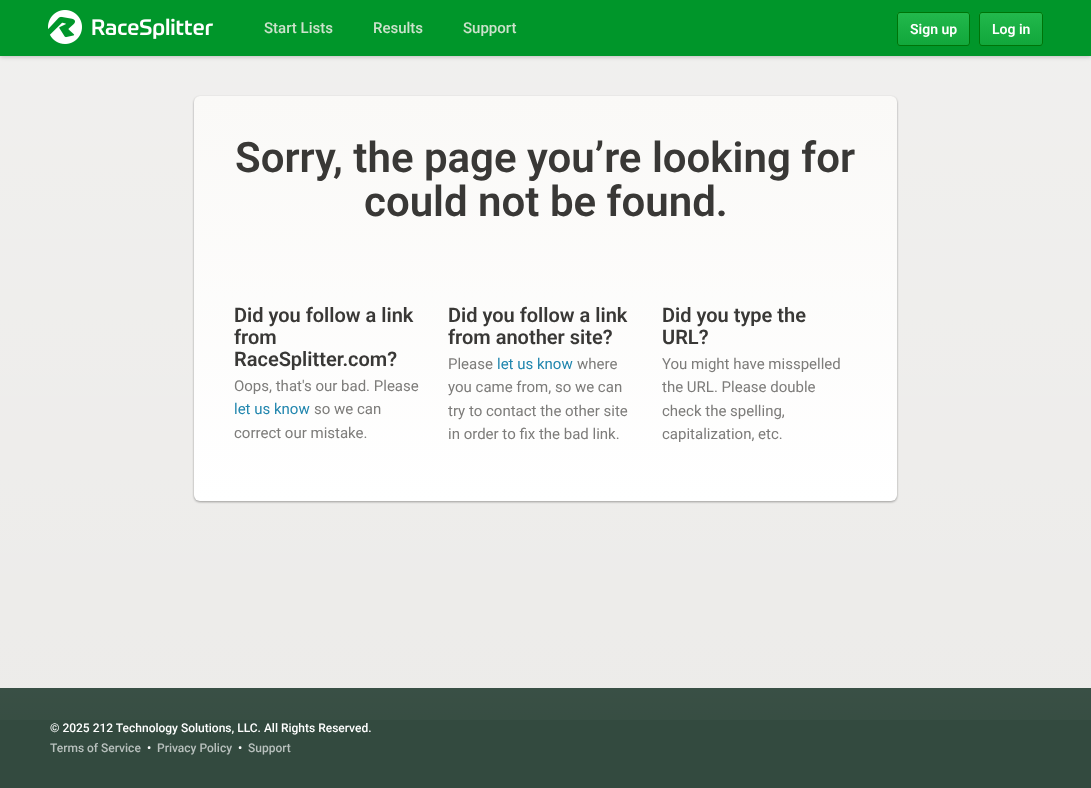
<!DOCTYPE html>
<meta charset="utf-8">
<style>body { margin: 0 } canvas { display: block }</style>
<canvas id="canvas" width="1091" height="788"></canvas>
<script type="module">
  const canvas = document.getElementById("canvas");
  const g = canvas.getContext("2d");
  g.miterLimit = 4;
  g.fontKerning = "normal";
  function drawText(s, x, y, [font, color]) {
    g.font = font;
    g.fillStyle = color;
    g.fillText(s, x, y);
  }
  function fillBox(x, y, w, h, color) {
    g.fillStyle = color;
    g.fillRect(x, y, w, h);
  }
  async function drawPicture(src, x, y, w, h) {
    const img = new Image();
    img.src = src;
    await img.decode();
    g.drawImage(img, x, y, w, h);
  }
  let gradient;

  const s1 = ["500 15px Roboto", "#CDE2CC"];
  const s2 = ["600 14px Roboto", "#FFFFFF"];
  const s3 = ["600 42px Roboto", "#393836"];
  const s4 = ["600 20px Roboto", "#393836"];
  const s5 = ["15px Roboto", "#7D7C7A"];
  const s6 = ["15px Roboto", "#2186AE"];
  const s7 = ["500 12px Roboto", "#FFFFFF"];
  const s8 = ["500 12px Roboto", "#B8C0BD"];

  fillBox(0, 0, 1091, 788, "#ECEBE9");
  fillBox(0, 688, 1091, 100, "#334A3F");
  gradient = g.createLinearGradient(0, 0, 0, 788);
  gradient.addColorStop(0, "rgba(255, 255, 255, 0.25)");
  gradient.addColorStop(1, "rgba(255, 255, 255, 0)");
  g.fillStyle = gradient;
  g.fillRect(0, 56, 1091, 664);
  g.fillStyle = "rgba(0, 0, 0, 0.2)";
  g.filter = "blur(2px)";
  g.beginPath();
  g.rect(0, 1, 1091, 56);
  g.fill();
  g.filter = "none";
  fillBox(0, 0, 1091, 56, "#00962A");
  await drawPicture("pic1.png", 48, 10, 165, 34);
  drawText("Start Lists", 264, 33, s1);
  drawText("Results", 373, 33, s1);
  drawText("Support", 463, 33, s1);
  g.save();
  g.beginPath();
  g.roundRect(897, 12, 73, 34, 3);
  g.clip();
  gradient = g.createLinearGradient(934, 13, 934, 45);
  gradient.addColorStop(0, "#22B84C");
  gradient.addColorStop(1, "#11A73B");
  g.fillStyle = gradient;
  g.fillRect(897, 13, 73, 32);
  g.restore();
  g.beginPath();
  g.roundRect(897.5, 12.5, 72, 33, 2.5);
  g.strokeStyle = "#007408";
  g.stroke();
  drawText("Sign up", 910, 34, s2);
  g.save();
  g.beginPath();
  g.roundRect(979, 12, 64, 34, 3);
  g.clip();
  gradient = g.createLinearGradient(1011, 13, 1011, 45);
  gradient.addColorStop(0, "#22B84C");
  gradient.addColorStop(1, "#11A73B");
  g.fillStyle = gradient;
  g.fillRect(979, 13, 64, 32);
  g.restore();
  g.beginPath();
  g.roundRect(979.5, 12.5, 63, 33, 2.5);
  g.stroke();
  drawText("Log in", 992, 34, s2);
  g.fillStyle = "rgba(0, 0, 0, 0.35)";
  g.filter = "blur(1px)";
  g.beginPath();
  g.roundRect(194, 97, 703, 405, 6);
  g.fill();
  g.filter = "none";
  gradient = g.createLinearGradient(194, 96, 194, 501);
  gradient.addColorStop(0, "#FAF9F7");
  gradient.addColorStop(1, "#FFFFFF");
  g.fillStyle = gradient;
  g.beginPath();
  g.roundRect(194, 96, 703, 405, 6);
  g.fill();
  drawText("Sorry, the page you’re looking for", 235, 172, s3);
  drawText("could not be found.", 364, 216, s3);
  drawText("Did you follow a link", 234, 322, s4);
  drawText("from", 234, 344, s4);
  drawText("RaceSplitter.com?", 234, 366, s4);
  drawText("Oops, that's our bad. Please", 234, 391, s5);
  drawText("let us know", 234, 414, s6);
  drawText("so we can", 314, 414, s5);
  drawText("correct our mistake.", 234, 438, s5);
  drawText("Did you follow a link", 448, 322, s4);
  drawText("from another site?", 448, 344, s4);
  drawText("Please", 448, 369, s5);
  drawText("let us know", 497, 369, s6);
  drawText("where", 577, 369, s5);
  drawText("you came from, so we can", 448, 392, s5);
  drawText("try to contact the other site", 448, 416, s5);
  drawText("in order to fix the bad link.", 448, 439, s5);
  drawText("Did you type the", 662, 322, s4);
  drawText("URL?", 662, 344, s4);
  drawText("You might have misspelled", 662, 369, s5);
  drawText("the URL. Please double", 662, 392, s5);
  drawText("check the spelling,", 662, 416, s5);
  drawText("capitalization, etc.", 662, 439, s5);
  drawText("© 2025 212 Technology Solutions, LLC. All Rights Reserved.", 50, 732, s7);
  drawText("Terms of Service", 50, 752, s8);
  drawText("•", 147, 752, s7);
  drawText("Privacy Policy", 157, 752, s8);
  drawText("•", 238, 752, s7);
  drawText("Support", 248, 752, s8);
</script>
